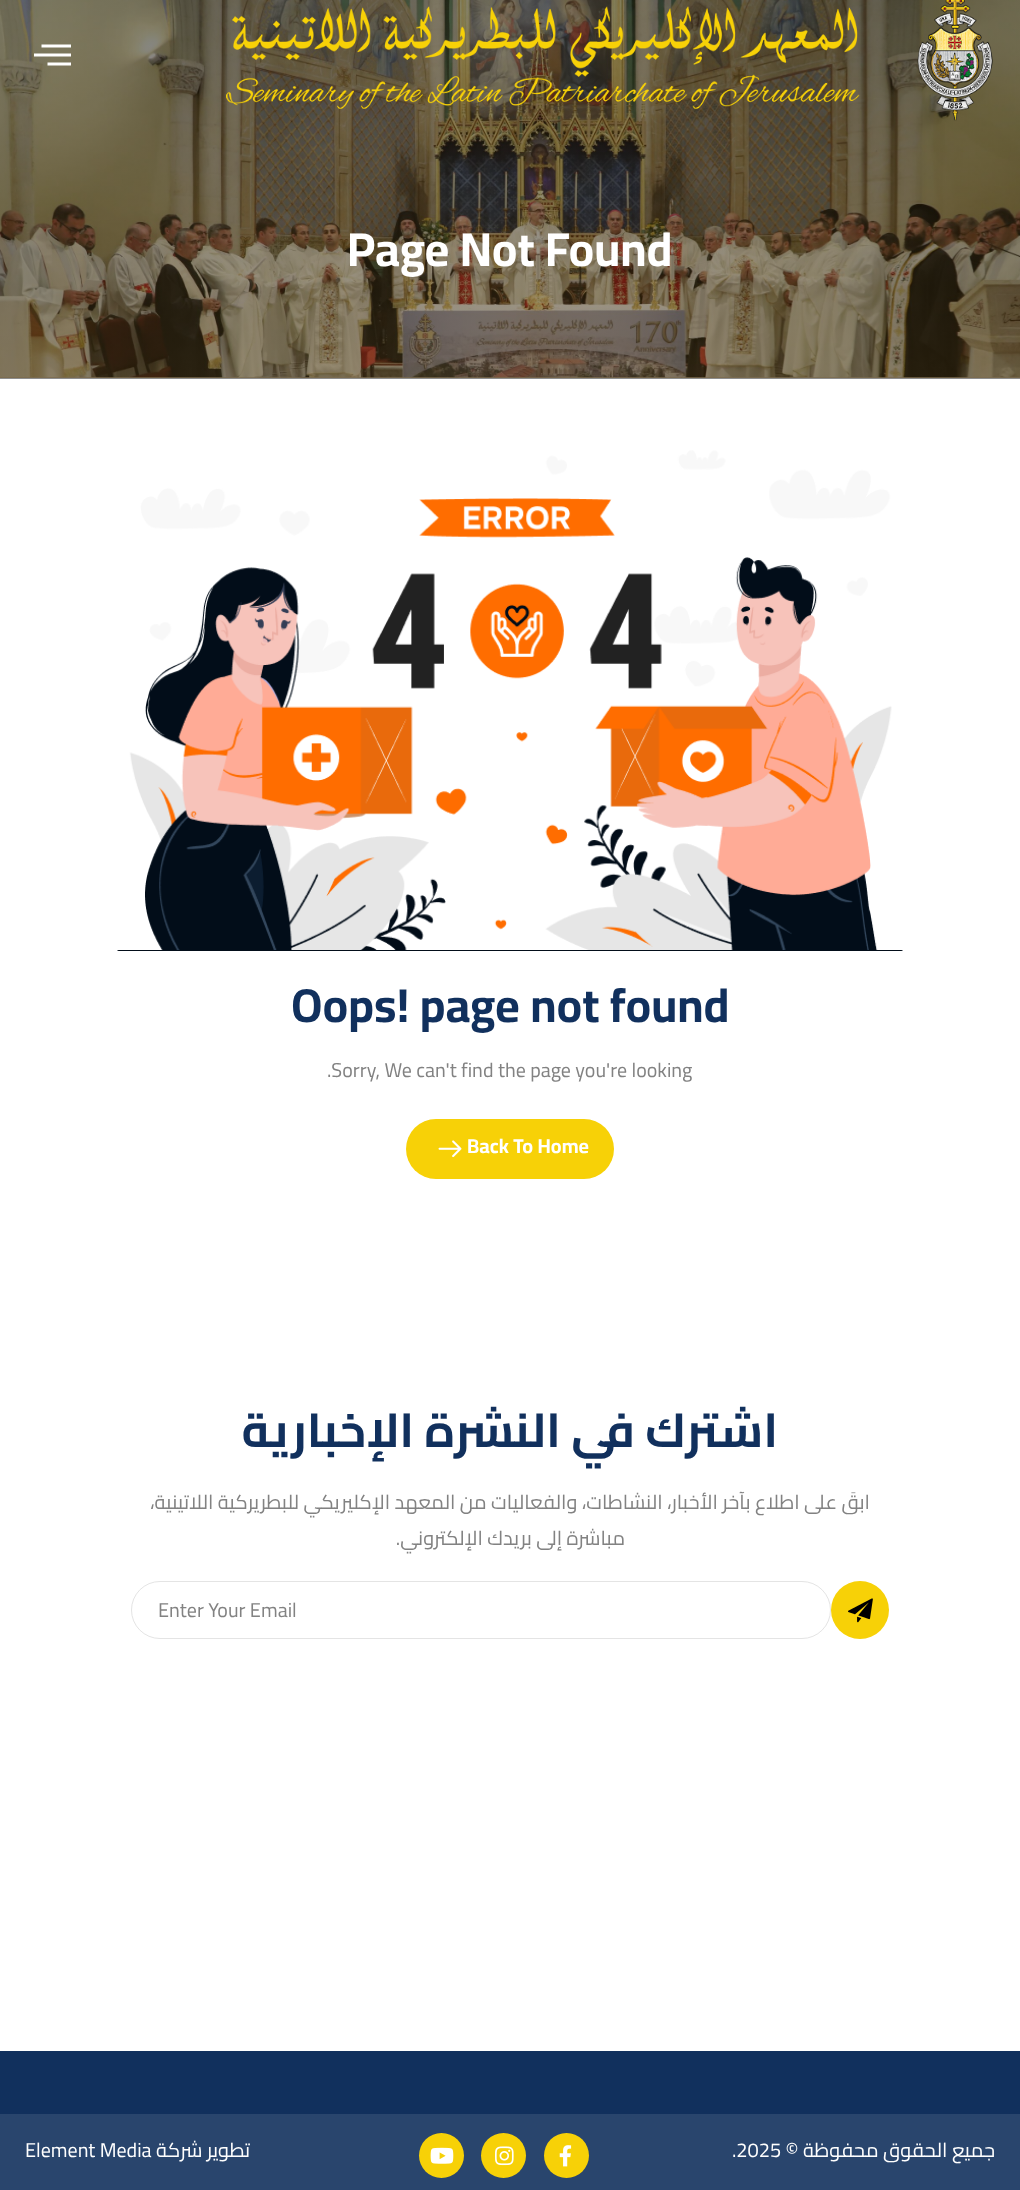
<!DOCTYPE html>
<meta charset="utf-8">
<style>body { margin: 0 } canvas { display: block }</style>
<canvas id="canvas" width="1020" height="2190"></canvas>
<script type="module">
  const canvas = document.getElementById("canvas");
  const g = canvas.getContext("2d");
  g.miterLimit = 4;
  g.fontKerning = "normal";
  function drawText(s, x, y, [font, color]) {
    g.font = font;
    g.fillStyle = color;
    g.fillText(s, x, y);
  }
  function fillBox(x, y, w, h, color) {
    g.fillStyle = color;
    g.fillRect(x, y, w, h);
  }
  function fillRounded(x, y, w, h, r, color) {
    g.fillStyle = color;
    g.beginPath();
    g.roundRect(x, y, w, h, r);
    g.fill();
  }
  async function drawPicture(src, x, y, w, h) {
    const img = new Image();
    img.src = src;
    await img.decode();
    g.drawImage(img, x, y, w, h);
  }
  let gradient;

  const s1 = ["bold 47.5px Cairo", "#FFFFFF"];
  const s2 = ["bold 47.5px Cairo", "#11305D"];
  const s3 = ["20px Cairo", "#828282"];
  const s4 = ["bold 20px Cairo", "#FFFFFF"];
  const s5 = ["20px Cairo", "#FFFFFF"];

  fillBox(0, 0, 1020, 2190, "#FFFFFF");
  gradient = g.createLinearGradient(510, -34, 510, 378);
  gradient.addColorStop(0, "#808080");
  gradient.addColorStop(1, "#B4A68C");
  g.fillStyle = gradient;
  g.fillRect(0, 377, 1020, 1);
  await drawPicture("pic1.png", 0, 0, 1020, 378);
  gradient = g.createLinearGradient(510, -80, 510, 649);
  gradient.addColorStop(0, "rgba(0, 0, 0, 0.5)");
  gradient.addColorStop(1, "rgba(105, 76, 25, 0.5)");
  g.fillStyle = gradient;
  g.fillRect(0, 0, 1020, 378);
  await drawPicture("pic2.png", 226, 0, 767, 121);
  g.fillStyle = "#FFFFFF";
  g.beginPath();
  g.moveTo(34, 56.5);
  g.lineTo(71, 56.5);
  g.lineTo(71, 53.5);
  g.lineTo(34, 53.5);
  g.closePath();
  g.moveTo(47.5, 65.5);
  g.lineTo(71, 65.5);
  g.lineTo(71, 62.5);
  g.lineTo(47.5, 62.5);
  g.closePath();
  g.moveTo(41.5, 44.5);
  g.lineTo(41.5, 47.5);
  g.lineTo(71, 47.5);
  g.lineTo(71, 44.5);
  g.closePath();
  g.fill();
  drawText("Page Not Found", 347, 266, s1);
  fillBox(0, 378, 1020, 1, "#8D8D8D");
  await drawPicture("pic3.png", 117, 450, 786, 501);
  drawText("Oops! page not found", 291, 1022, s2);
  drawText(".Sorry, We can't find the page you're looking", 327, 1077, s3);
  fillRounded(406, 1119, 208, 60, 30, "#F7D107");
  drawText("Back To Home", 467, 1153, s4);
  await drawPicture("pic4.png", 438, 1140, 24, 18);
  g.direction = "rtl";
  drawText("اشترك في النشرة الإخبارية", 778, 1447, s2);
  drawText("ابقَ على اطلاع بآخر الأخبار، النشاطات، والفعاليات من المعهد الإكليريكي للبطريركية اللاتينية،", 870, 1509, s3);
  drawText("مباشرة إلى بريدك الإلكتروني.", 625, 1545, s3);
  g.fillStyle = "#F7D107";
  g.beginPath();
  g.arc(860, 1610, 29, 0, Math.PI * 2);
  g.fill();
  await drawPicture("pic5.png", 848, 1598, 25, 25);
  g.beginPath();
  g.roundRect(131.5, 1581.5, 699, 57, 28.5);
  g.strokeStyle = "#E4E4E4";
  g.stroke();
  g.direction = "ltr";
  drawText("Enter Your Email", 158, 1617, s3);
  fillBox(0, 2051, 1020, 63, "#11305D");
  fillBox(0, 2114, 1020, 76, "#29456D");
  g.direction = "rtl";
  drawText("جميع الحقوق محفوظة ©", 995, 2157, s5);
  g.direction = "ltr";
  drawText(".2025", 732, 2157, s5);
  g.fillStyle = "#F7D107";
  g.beginPath();
  g.arc(566.5, 2155.5, 22.5, 0, Math.PI * 2);
  g.fill();
  await drawPicture("pic6.png", 559, 2145, 13, 22);
  g.beginPath();
  g.arc(503.5, 2155.5, 22.5, 0, Math.PI * 2);
  g.fill();
  await drawPicture("pic7.png", 495, 2146, 19, 20);
  g.beginPath();
  g.arc(441.5, 2155.5, 22.5, 0, Math.PI * 2);
  g.fill();
  await drawPicture("pic8.png", 430, 2147, 24, 17);
  g.direction = "rtl";
  drawText("تطوير شركة", 250, 2157, s5);
  g.direction = "ltr";
  drawText("Element Media", 25, 2157, s5);
</script>
